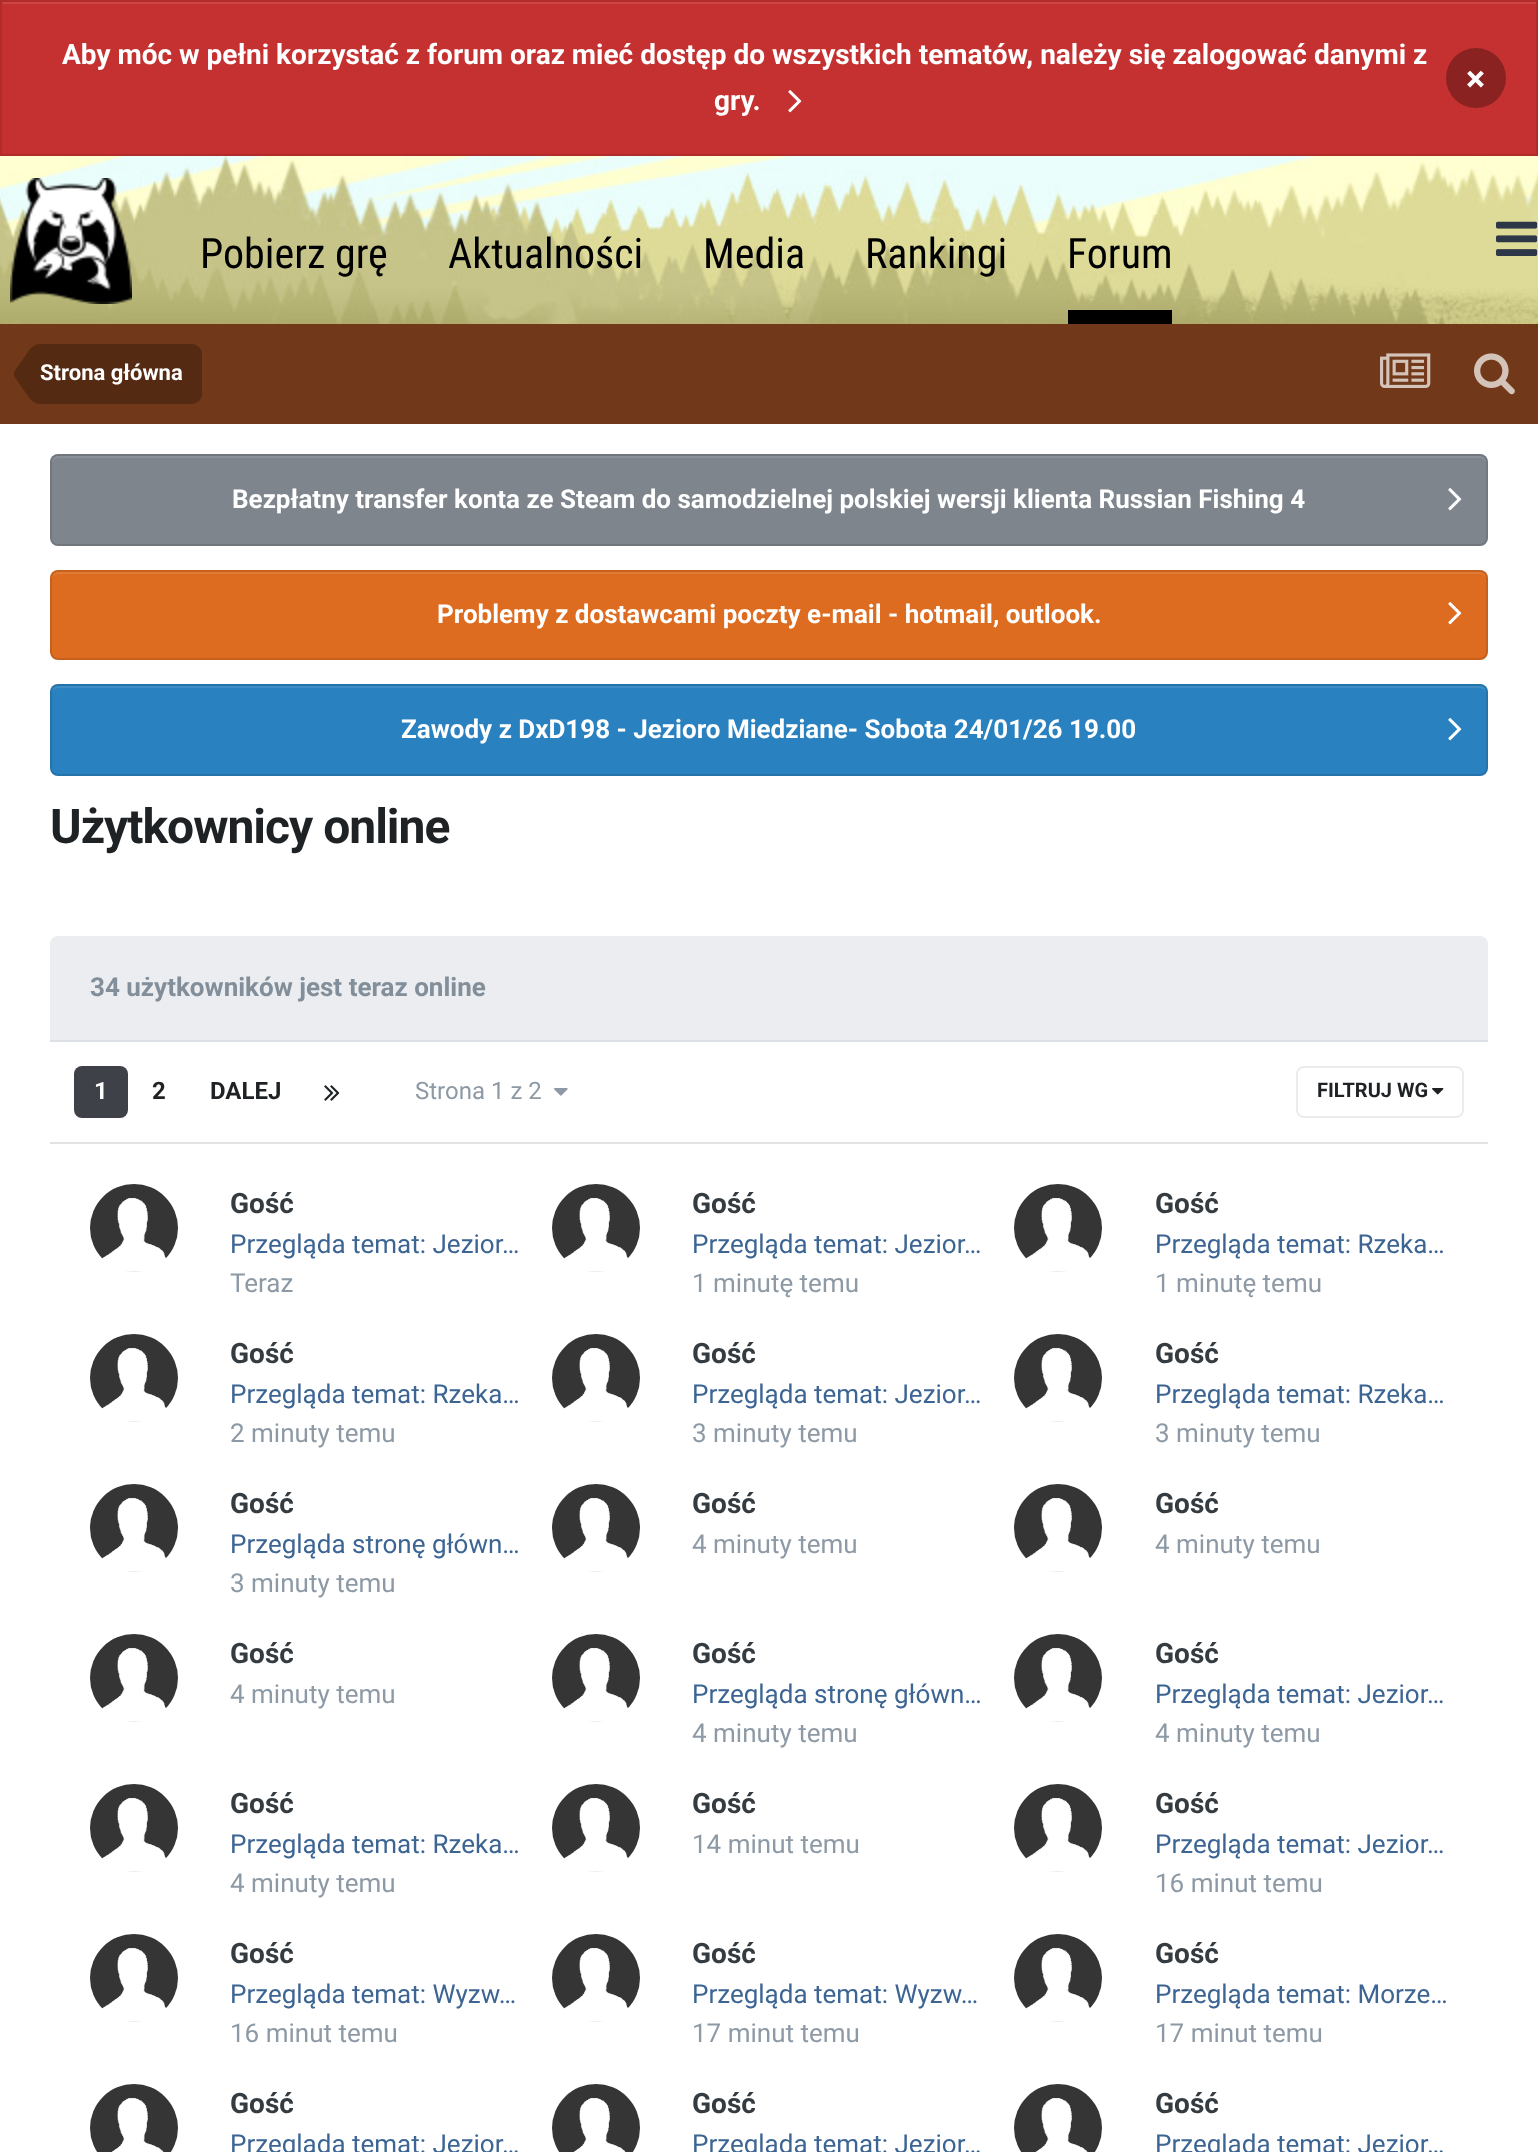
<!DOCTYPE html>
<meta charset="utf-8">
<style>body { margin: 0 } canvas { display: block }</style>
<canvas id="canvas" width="1538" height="2152"></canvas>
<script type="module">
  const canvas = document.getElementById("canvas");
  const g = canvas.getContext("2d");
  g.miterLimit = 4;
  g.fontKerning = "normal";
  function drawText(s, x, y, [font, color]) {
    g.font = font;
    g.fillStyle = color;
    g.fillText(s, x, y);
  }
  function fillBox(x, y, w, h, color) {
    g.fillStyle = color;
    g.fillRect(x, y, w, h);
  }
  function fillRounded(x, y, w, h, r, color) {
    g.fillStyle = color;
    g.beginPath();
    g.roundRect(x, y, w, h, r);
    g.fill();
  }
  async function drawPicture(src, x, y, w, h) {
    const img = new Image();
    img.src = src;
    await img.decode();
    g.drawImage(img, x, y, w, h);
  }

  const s1 = ["bold 28px Roboto", "#FFFFFF"];
  const s2 = ["bold 36px Roboto", "#FFFFFF"];
  const s3 = ["42px Roboto Condensed", "#000000"];
  const s4 = ["bold 22px Roboto", "#FFFFFF"];
  const s5 = ["bold 26px Roboto", "#FFFFFF"];
  const s6 = ["bold 48px Roboto", "#1E2225"];
  const s7 = ["bold 26px Roboto", "#828E99"];
  const s8 = ["bold 24px Roboto", "#FFFFFF"];
  const s9 = ["bold 24px Roboto", "#1E2225"];
  const s10 = ["24px Roboto", "#8D9AA6"];
  const s11 = ["bold 20px Roboto", "#1E2225"];
  const s12 = ["bold 28px Roboto", "#353C41"];
  const s13 = ["26px Roboto", "#3D6594"];
  const s14 = ["26px Roboto", "#8D9AA6"];

  fillBox(0, 0, 1538, 2152, "#FFFFFF");
  fillBox(2, 4, 1534, 150, "#C53030");
  fillBox(2, 2, 1534, 2, "#CB4545");
  g.strokeStyle = "#B12B2B";
  g.lineWidth = 2;
  g.strokeRect(1, 1, 1536, 154);
  drawText("Aby móc w pełni korzystać z forum oraz mieć dostęp do wszystkich tematów, należy się zalogować danymi z", 62, 64, s1);
  drawText("gry.", 714, 110, s1);
  await drawPicture("pic1.png", 788, 90, 14, 23);
  g.fillStyle = "#8A2222";
  g.beginPath();
  g.arc(1476, 78, 30, 0, Math.PI * 2);
  g.fill();
  drawText("×", 1466, 91, s2);
  await drawPicture("pic2.png", 0, 156, 1538, 168);
  await drawPicture("pic3.png", 10, 178, 122, 126);
  drawText("Pobierz grę", 200, 268, s3);
  drawText("Aktualności", 448, 268, s3);
  drawText("Media", 703, 268, s3);
  drawText("Rankingi", 865, 268, s3);
  drawText("Forum", 1067, 268, s3);
  fillBox(1068, 310, 104, 14, "#000000");
  await drawPicture("pic4.png", 1496, 221, 42, 35);
  fillBox(0, 324, 1538, 100, "#713819");
  g.fillStyle = "#552A13";
  g.beginPath();
  g.roundRect(40, 344, 162, 60, [0, 10, 10, 0]);
  g.fill();
  g.beginPath();
  g.moveTo(40, 374);
  g.lineTo(40, 404);
  g.bezierCurveTo(36.5, 404, 33, 402, 30, 399);
  g.lineTo(15, 377.5);
  g.bezierCurveTo(14.5, 376.5, 14, 375.5, 14, 374);
  g.closePath();
  g.moveTo(40, 374);
  g.lineTo(14, 374);
  g.bezierCurveTo(14, 372.5, 14.5, 371.5, 15, 370.5);
  g.lineTo(30, 349);
  g.bezierCurveTo(33, 346, 36.5, 344, 40, 344);
  g.closePath();
  g.fill();
  drawText("Strona główna", 40, 380, s4);
  await drawPicture("pic5.png", 1380, 353, 51, 35);
  await drawPicture("pic6.png", 1474, 353, 41, 42);
  fillRounded(50, 454, 1438, 92, 8, "#7F858D");
  g.fillStyle = "#8C9198";
  g.beginPath();
  g.moveTo(58, 458);
  g.lineTo(1480, 458);
  g.bezierCurveTo(1483, 458, 1486, 461, 1486, 464);
  g.bezierCurveTo(1486, 460, 1485, 456, 1480, 456);
  g.lineTo(58, 456);
  g.bezierCurveTo(53, 456, 52, 460, 52, 464);
  g.bezierCurveTo(52, 461, 55, 458, 58, 458);
  g.closePath();
  g.fill();
  g.beginPath();
  g.roundRect(51, 455, 1436, 90, 7);
  g.strokeStyle = "rgba(0, 0, 0, 0.1)";
  g.stroke();
  drawText("Bezpłatny transfer konta ze Steam do samodzielnej polskiej wersji klienta Russian Fishing 4", 232, 508, s5);
  await drawPicture("pic7.png", 1448, 488, 14, 23);
  fillRounded(50, 570, 1438, 90, 8, "#DD6B20");
  g.fillStyle = "#E07A36";
  g.beginPath();
  g.moveTo(58, 574);
  g.lineTo(1480, 574);
  g.bezierCurveTo(1483, 574, 1486, 577, 1486, 580);
  g.bezierCurveTo(1486, 576, 1485, 572, 1480, 572);
  g.lineTo(58, 572);
  g.bezierCurveTo(53, 572, 52, 576, 52, 580);
  g.bezierCurveTo(52, 577, 55, 574, 58, 574);
  g.closePath();
  g.fill();
  g.beginPath();
  g.roundRect(51, 571, 1436, 88, 7);
  g.stroke();
  drawText("Problemy z dostawcami poczty e-mail - hotmail, outlook.", 437, 623, s5);
  await drawPicture("pic8.png", 1448, 602, 14, 23);
  fillRounded(50, 684, 1438, 92, 8, "#2981BF");
  g.fillStyle = "#3E8EC5";
  g.beginPath();
  g.moveTo(58, 688);
  g.lineTo(1480, 688);
  g.bezierCurveTo(1483, 688, 1486, 691, 1486, 694);
  g.bezierCurveTo(1486, 690, 1485, 686, 1480, 686);
  g.lineTo(58, 686);
  g.bezierCurveTo(53, 686, 52, 690, 52, 694);
  g.bezierCurveTo(52, 691, 55, 688, 58, 688);
  g.closePath();
  g.fill();
  g.beginPath();
  g.roundRect(51, 685, 1436, 90, 7);
  g.stroke();
  drawText("Zawody z DxD198 - Jezioro Miedziane- Sobota 24/01/26 19.00", 401, 738, s5);
  await drawPicture("pic9.png", 1448, 718, 14, 23);
  g.letterSpacing = "-1px";
  drawText("Użytkownicy online", 50, 843, s6);
  g.fillStyle = "#EBEDF0";
  g.beginPath();
  g.roundRect(50, 936, 1438, 106, [8, 8, 0, 0]);
  g.fill();
  fillBox(50, 1040, 1438, 2, "#DDE1E5");
  g.letterSpacing = "0px";
  drawText("34 użytkowników jest teraz online", 90, 996, s7);
  fillBox(50, 1142, 1438, 2, "#E1E2E3");
  fillRounded(74, 1066, 54, 52, 8, "#3E4148");
  drawText("1", 94, 1099, s8);
  drawText("2", 152, 1099, s9);
  drawText("DALEJ", 210, 1099, s9);
  await drawPicture("pic10.png", 324, 1085, 16, 16);
  drawText("Strona 1 z 2", 415, 1099, s10);
  await drawPicture("pic11.png", 554, 1088, 14, 8);
  await drawPicture("pic12.png", 1432, 1088, 12, 7);
  g.beginPath();
  g.roundRect(1297, 1067, 166, 50, 7);
  g.strokeStyle = "#EBECEC";
  g.stroke();
  drawText("FILTRUJ WG", 1317, 1097, s11);
  await drawPicture("pic13.png", 90, 1184, 88, 88);
  drawText("Gość", 230, 1213, s12);
  drawText("Przegląda temat: Jezior…", 230, 1253, s13);
  drawText("Teraz", 230, 1292, s14);
  await drawPicture("pic14.png", 552, 1184, 88, 88);
  drawText("Gość", 692, 1213, s12);
  drawText("Przegląda temat: Jezior…", 692, 1253, s13);
  drawText("1 minutę temu", 692, 1292, s14);
  await drawPicture("pic15.png", 1014, 1184, 88, 88);
  drawText("Gość", 1155, 1213, s12);
  drawText("Przegląda temat: Rzeka…", 1155, 1253, s13);
  drawText("1 minutę temu", 1155, 1292, s14);
  await drawPicture("pic16.png", 90, 1334, 88, 88);
  drawText("Gość", 230, 1363, s12);
  drawText("Przegląda temat: Rzeka…", 230, 1403, s13);
  drawText("2 minuty temu", 230, 1442, s14);
  await drawPicture("pic17.png", 552, 1334, 88, 88);
  drawText("Gość", 692, 1363, s12);
  drawText("Przegląda temat: Jezior…", 692, 1403, s13);
  drawText("3 minuty temu", 692, 1442, s14);
  await drawPicture("pic18.png", 1014, 1334, 88, 88);
  drawText("Gość", 1155, 1363, s12);
  drawText("Przegląda temat: Rzeka…", 1155, 1403, s13);
  drawText("3 minuty temu", 1155, 1442, s14);
  await drawPicture("pic19.png", 90, 1484, 88, 88);
  drawText("Gość", 230, 1513, s12);
  drawText("Przegląda stronę główn…", 230, 1553, s13);
  drawText("3 minuty temu", 230, 1592, s14);
  await drawPicture("pic20.png", 552, 1484, 88, 88);
  drawText("Gość", 692, 1513, s12);
  drawText("4 minuty temu", 692, 1553, s14);
  await drawPicture("pic21.png", 1014, 1484, 88, 88);
  drawText("Gość", 1155, 1513, s12);
  drawText("4 minuty temu", 1155, 1553, s14);
  await drawPicture("pic16.png", 90, 1634, 88, 88);
  drawText("Gość", 230, 1663, s12);
  drawText("4 minuty temu", 230, 1703, s14);
  await drawPicture("pic17.png", 552, 1634, 88, 88);
  drawText("Gość", 692, 1663, s12);
  drawText("Przegląda stronę główn…", 692, 1703, s13);
  drawText("4 minuty temu", 692, 1742, s14);
  await drawPicture("pic18.png", 1014, 1634, 88, 88);
  drawText("Gość", 1155, 1663, s12);
  drawText("Przegląda temat: Jezior…", 1155, 1703, s13);
  drawText("4 minuty temu", 1155, 1742, s14);
  await drawPicture("pic16.png", 90, 1784, 88, 88);
  drawText("Gość", 230, 1813, s12);
  drawText("Przegląda temat: Rzeka…", 230, 1853, s13);
  drawText("4 minuty temu", 230, 1892, s14);
  await drawPicture("pic17.png", 552, 1784, 88, 88);
  drawText("Gość", 692, 1813, s12);
  drawText("14 minut temu", 692, 1853, s14);
  await drawPicture("pic18.png", 1014, 1784, 88, 88);
  drawText("Gość", 1155, 1813, s12);
  drawText("Przegląda temat: Jezior…", 1155, 1853, s13);
  drawText("16 minut temu", 1155, 1892, s14);
  await drawPicture("pic16.png", 90, 1934, 88, 88);
  drawText("Gość", 230, 1963, s12);
  drawText("Przegląda temat: Wyzw…", 230, 2003, s13);
  drawText("16 minut temu", 230, 2042, s14);
  await drawPicture("pic17.png", 552, 1934, 88, 88);
  drawText("Gość", 692, 1963, s12);
  drawText("Przegląda temat: Wyzw…", 692, 2003, s13);
  drawText("17 minut temu", 692, 2042, s14);
  await drawPicture("pic18.png", 1014, 1934, 88, 88);
  drawText("Gość", 1155, 1963, s12);
  drawText("Przegląda temat: Morze…", 1155, 2003, s13);
  drawText("17 minut temu", 1155, 2042, s14);
  await drawPicture("pic22.png", 90, 2084, 88, 68);
  drawText("Gość", 230, 2113, s12);
  drawText("Przegląda temat: Jezior…", 230, 2153, s13);
  await drawPicture("pic23.png", 552, 2084, 88, 68);
  drawText("Gość", 692, 2113, s12);
  drawText("Przegląda temat: Jezior…", 692, 2153, s13);
  await drawPicture("pic24.png", 1014, 2084, 88, 68);
  drawText("Gość", 1155, 2113, s12);
  drawText("Przegląda temat: Jezior…", 1155, 2153, s13);
</script>
